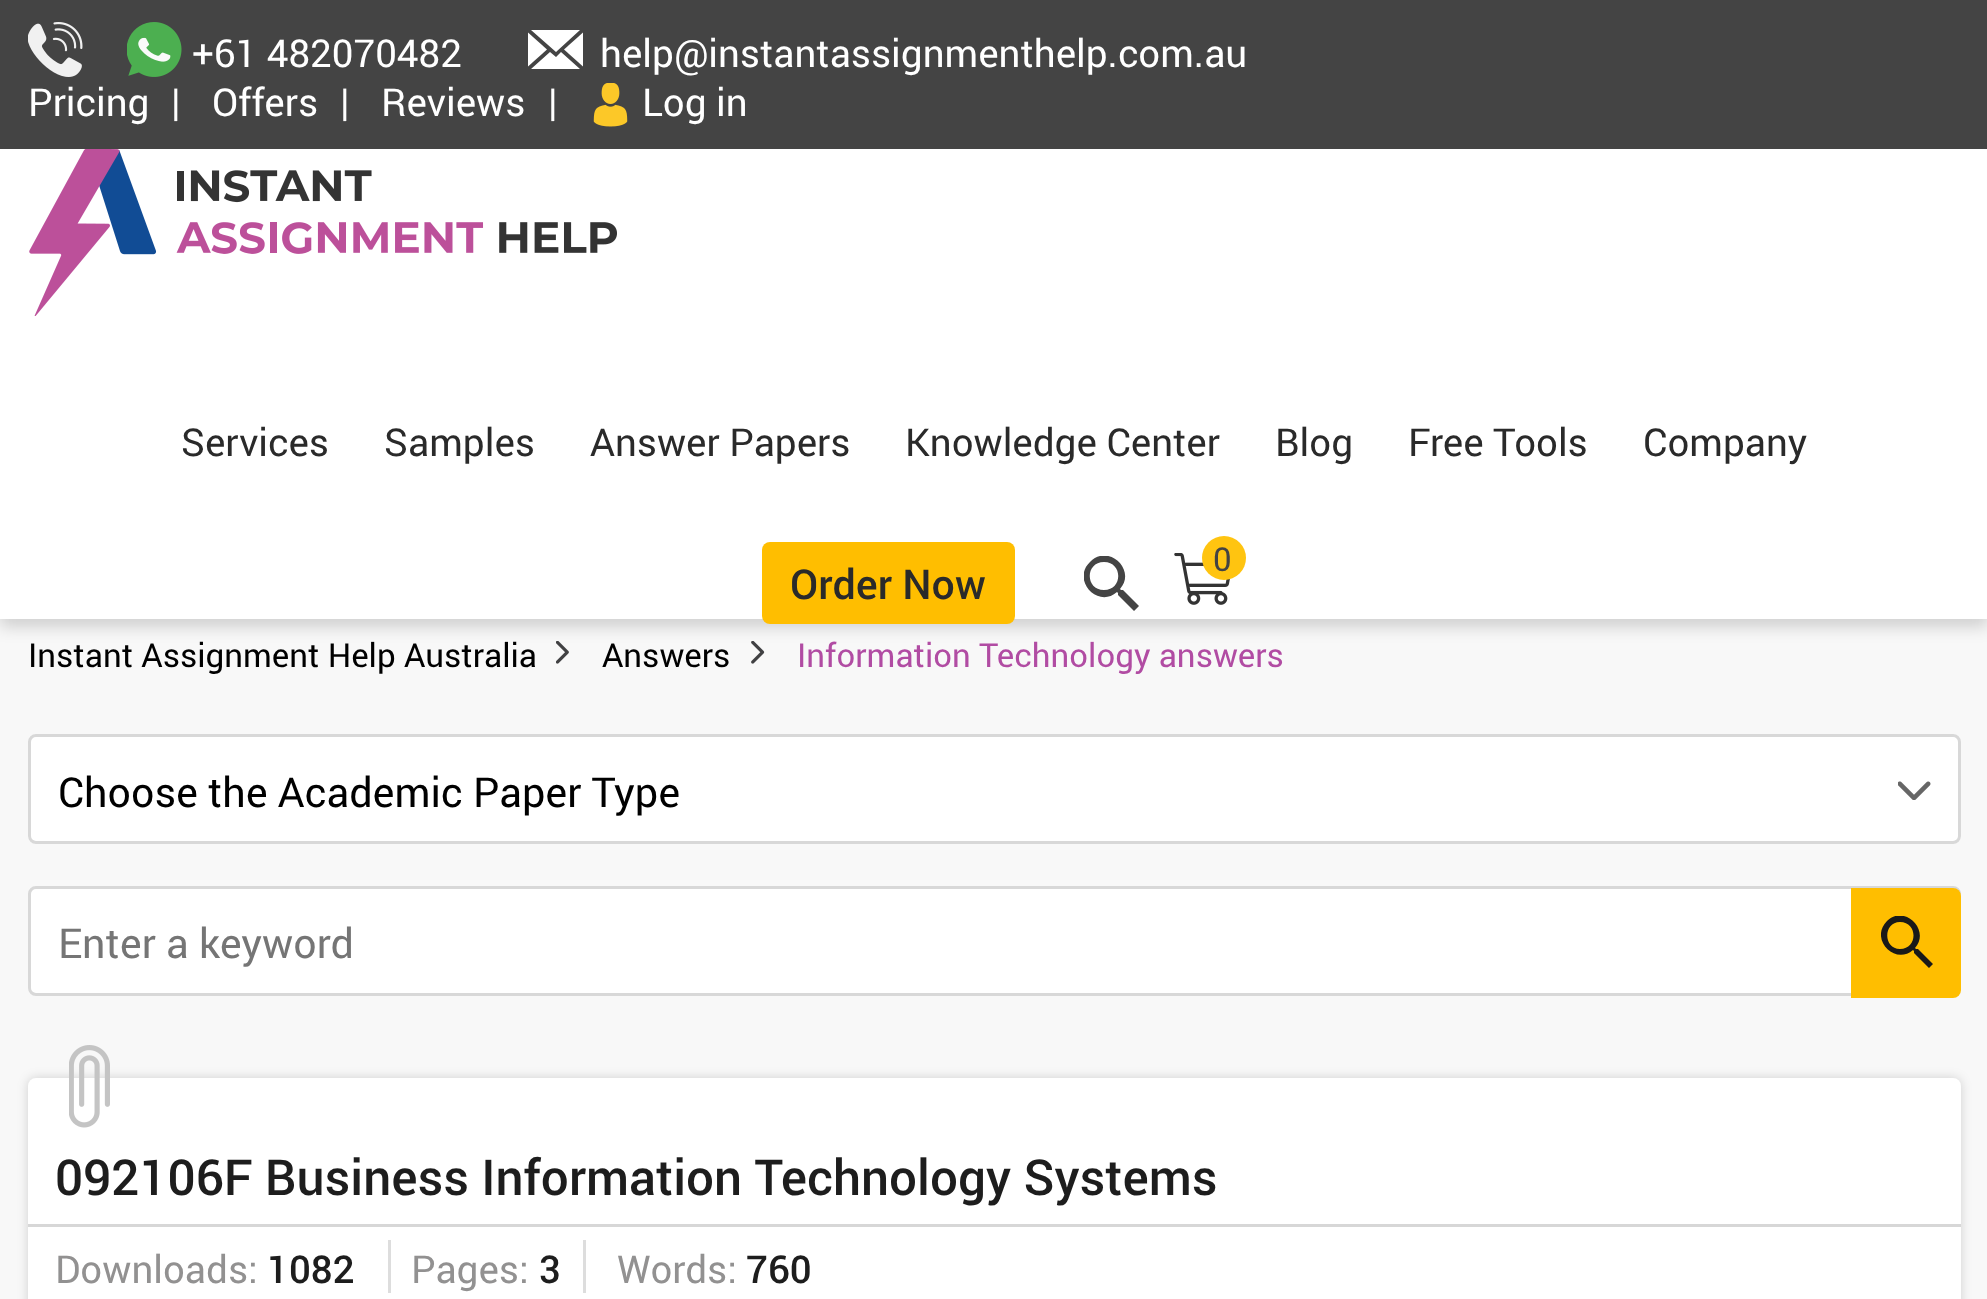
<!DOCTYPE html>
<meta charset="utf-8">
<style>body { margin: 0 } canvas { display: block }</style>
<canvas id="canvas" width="1987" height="1299"></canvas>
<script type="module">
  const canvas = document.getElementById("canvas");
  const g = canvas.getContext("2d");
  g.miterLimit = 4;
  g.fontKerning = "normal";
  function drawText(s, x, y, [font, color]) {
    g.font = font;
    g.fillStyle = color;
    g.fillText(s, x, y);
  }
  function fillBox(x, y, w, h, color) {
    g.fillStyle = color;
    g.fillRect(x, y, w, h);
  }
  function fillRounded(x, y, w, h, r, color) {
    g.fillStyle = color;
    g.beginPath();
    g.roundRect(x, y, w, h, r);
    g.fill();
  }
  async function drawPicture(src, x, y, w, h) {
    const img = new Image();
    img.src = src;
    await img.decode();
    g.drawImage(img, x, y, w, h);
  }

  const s1 = ["38.5px Roboto", "#FFFFFF"];
  const s2 = ["38.5px Roboto", "#2A2A2A"];
  const s3 = ["500 41.25px Roboto", "#2A2A2A"];
  const s4 = ["33px Roboto", "#434343"];
  const s5 = ["33px Roboto", "#000000"];
  const s6 = ["33px Roboto", "#B14CA3"];
  const s7 = ["41.25px Roboto", "#000000"];
  const s8 = ["41.25px Roboto", "#757575"];
  const s9 = ["500 49.5px Roboto", "#1D1D1D"];
  const s10 = ["38.5px Roboto", "#929191"];
  const s11 = ["500 38.5px Roboto", "#1D1D1D"];

  fillBox(0, 0, 1987, 1299, "#FFFFFF");
  fillBox(0, 619, 1987, 680, "#F8F8F8");
  await drawPicture("pic6.png", 556, 641, 13, 23);
  await drawPicture("pic7.png", 751, 641, 14, 23);
  g.save();
  g.beginPath();
  g.moveTo(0, 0);
  g.lineTo(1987, 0);
  g.lineTo(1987, 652);
  g.lineTo(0, 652);
  g.closePath();
  g.moveTo(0, 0);
  g.lineTo(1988, 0);
  g.lineTo(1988, 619);
  g.lineTo(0, 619);
  g.closePath();
  g.clip("evenodd");
  g.fillStyle = "rgba(0, 0, 0, 0.16)";
  g.filter = "blur(8px)";
  g.beginPath();
  g.rect(0, 8, 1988, 619);
  g.fill();
  g.filter = "none";
  g.restore();
  fillBox(0, 0, 1987, 149, "#444444");
  await drawPicture("pic1.png", 28, 22, 55, 55);
  await drawPicture("pic2.png", 127, 22, 55, 55);
  drawText("+61 482070482", 192, 67, s1);
  drawText("help@instantassignmenthelp.com.au", 600, 67, s1);
  g.beginPath();
  g.moveTo(583, 66.5);
  g.lineTo(583, 32.5);
  g.lineTo(564, 49.5);
  g.closePath();
  g.fill();
  g.beginPath();
  g.moveTo(556, 57);
  g.lineTo(550, 52);
  g.lineTo(531, 69);
  g.lineTo(580, 69);
  g.lineTo(561, 52);
  g.closePath();
  g.moveTo(580, 30);
  g.lineTo(531, 30);
  g.lineTo(556, 52);
  g.closePath();
  g.fill();
  g.beginPath();
  g.moveTo(528, 32.5);
  g.lineTo(528, 66.5);
  g.lineTo(547, 49.5);
  g.closePath();
  g.fill();
  drawText("Pricing", 28, 116, s1);
  drawText("|", 171, 116, s1);
  drawText("Offers", 212, 116, s1);
  drawText("|", 340, 116, s1);
  drawText("Reviews", 381, 116, s1);
  drawText("|", 548, 116, s1);
  await drawPicture("pic3.png", 593, 83, 35, 44);
  drawText("Log in", 642, 116, s1);
  await drawPicture("pic4.png", 29, 149, 588, 167);
  drawText("Services", 181, 456, s2);
  drawText("Samples", 384, 456, s2);
  drawText("Answer Papers", 590, 456, s2);
  drawText("Knowledge Center", 905, 456, s2);
  drawText("Blog", 1275, 456, s2);
  drawText("Free Tools", 1408, 456, s2);
  drawText("Company", 1643, 456, s2);
  fillRounded(762, 542, 253, 82, 8, "#FFBE00");
  drawText("Order Now", 790, 599, s3);
  g.save();
  g.beginPath();
  g.rect(1084, 556, 57, 55);
  g.clip();
  g.fillStyle = "#444444";
  g.beginPath();
  g.moveTo(1123, 590);
  g.lineTo(1121, 590);
  g.lineTo(1120, 589);
  g.bezierCurveTo(1137, 570, 1108, 543, 1090, 562);
  g.bezierCurveTo(1071, 580, 1098, 609, 1117, 592);
  g.lineTo(1118, 593);
  g.lineTo(1118, 595);
  g.lineTo(1134, 611);
  g.lineTo(1139, 606);
  g.closePath();
  g.moveTo(1104, 590);
  g.bezierCurveTo(1085, 590, 1085, 562, 1104, 562);
  g.bezierCurveTo(1123, 562, 1123, 590, 1104, 590);
  g.closePath();
  g.fill();
  g.restore();
  await drawPicture("pic5.png", 1174, 553, 56, 52);
  g.fillStyle = "#FFC410";
  g.beginPath();
  g.arc(1224, 558, 22, 0, Math.PI * 2);
  g.fill();
  drawText("0", 1213, 571, s4);
  drawText("Instant Assignment Help Australia", 28, 667, s5);
  drawText("Answers", 602, 667, s5);
  drawText("Information Technology answers", 797, 667, s6);
  fillRounded(28, 734, 1933, 110, 8, "#FFFFFF");
  await drawPicture("pic8.png", 1898, 781, 33, 19);
  g.beginPath();
  g.roundRect(29.5, 735.5, 1930, 107, 6.5);
  g.strokeStyle = "#D8D8D8";
  g.lineWidth = 3;
  g.stroke();
  drawText("Choose the Academic Paper Type", 58, 807, s7);
  g.fillStyle = "#FFFFFF";
  g.beginPath();
  g.roundRect(29.5, 887.5, 1930, 107, 6.5);
  g.fill();
  g.stroke();
  drawText("Enter a keyword", 58, 958, s8);
  g.fillStyle = "#FFBE00";
  g.beginPath();
  g.roundRect(1851, 888, 110, 110, [0, 8, 8, 0]);
  g.fill();
  g.save();
  g.beginPath();
  g.rect(1881, 916, 52, 52);
  g.clip();
  g.fillStyle = "#191919";
  g.beginPath();
  g.moveTo(1918, 949);
  g.lineTo(1916, 949);
  g.lineTo(1915, 948);
  g.bezierCurveTo(1931, 930, 1904, 904, 1887, 921);
  g.bezierCurveTo(1869, 939, 1895, 966, 1913, 950);
  g.lineTo(1914, 951);
  g.lineTo(1914, 953);
  g.lineTo(1929, 968);
  g.lineTo(1933, 964);
  g.closePath();
  g.moveTo(1900, 949);
  g.bezierCurveTo(1883, 949, 1883, 922, 1900, 922);
  g.bezierCurveTo(1918, 922, 1918, 949, 1900, 949);
  g.closePath();
  g.fill();
  g.restore();
  g.fillStyle = "rgba(0, 0, 0, 0.16)";
  g.filter = "blur(5.5px)";
  g.beginPath();
  g.roundRect(28, 1078, 1933, 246, 8);
  g.fill();
  g.filter = "none";
  fillRounded(28, 1078, 1933, 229, 8, "#FFFFFF");
  await drawPicture("pic9.png", 69, 1045, 41, 83);
  fillBox(28, 1224, 1933, 3, "#D7D7D7");
  drawText("092106F Business Information Technology Systems", 55, 1195, s9);
  drawText("Downloads:", 55, 1283, s10);
  drawText("1082", 267, 1283, s11);
  fillBox(388, 1240, 3, 53, "#DDDDDD");
  drawText("Pages:", 411, 1283, s10);
  drawText("3", 539, 1283, s11);
  fillBox(583, 1240, 3, 53, "#DDDDDD");
  drawText("Words:", 617, 1283, s10);
  drawText("760", 746, 1283, s11);
</script>
